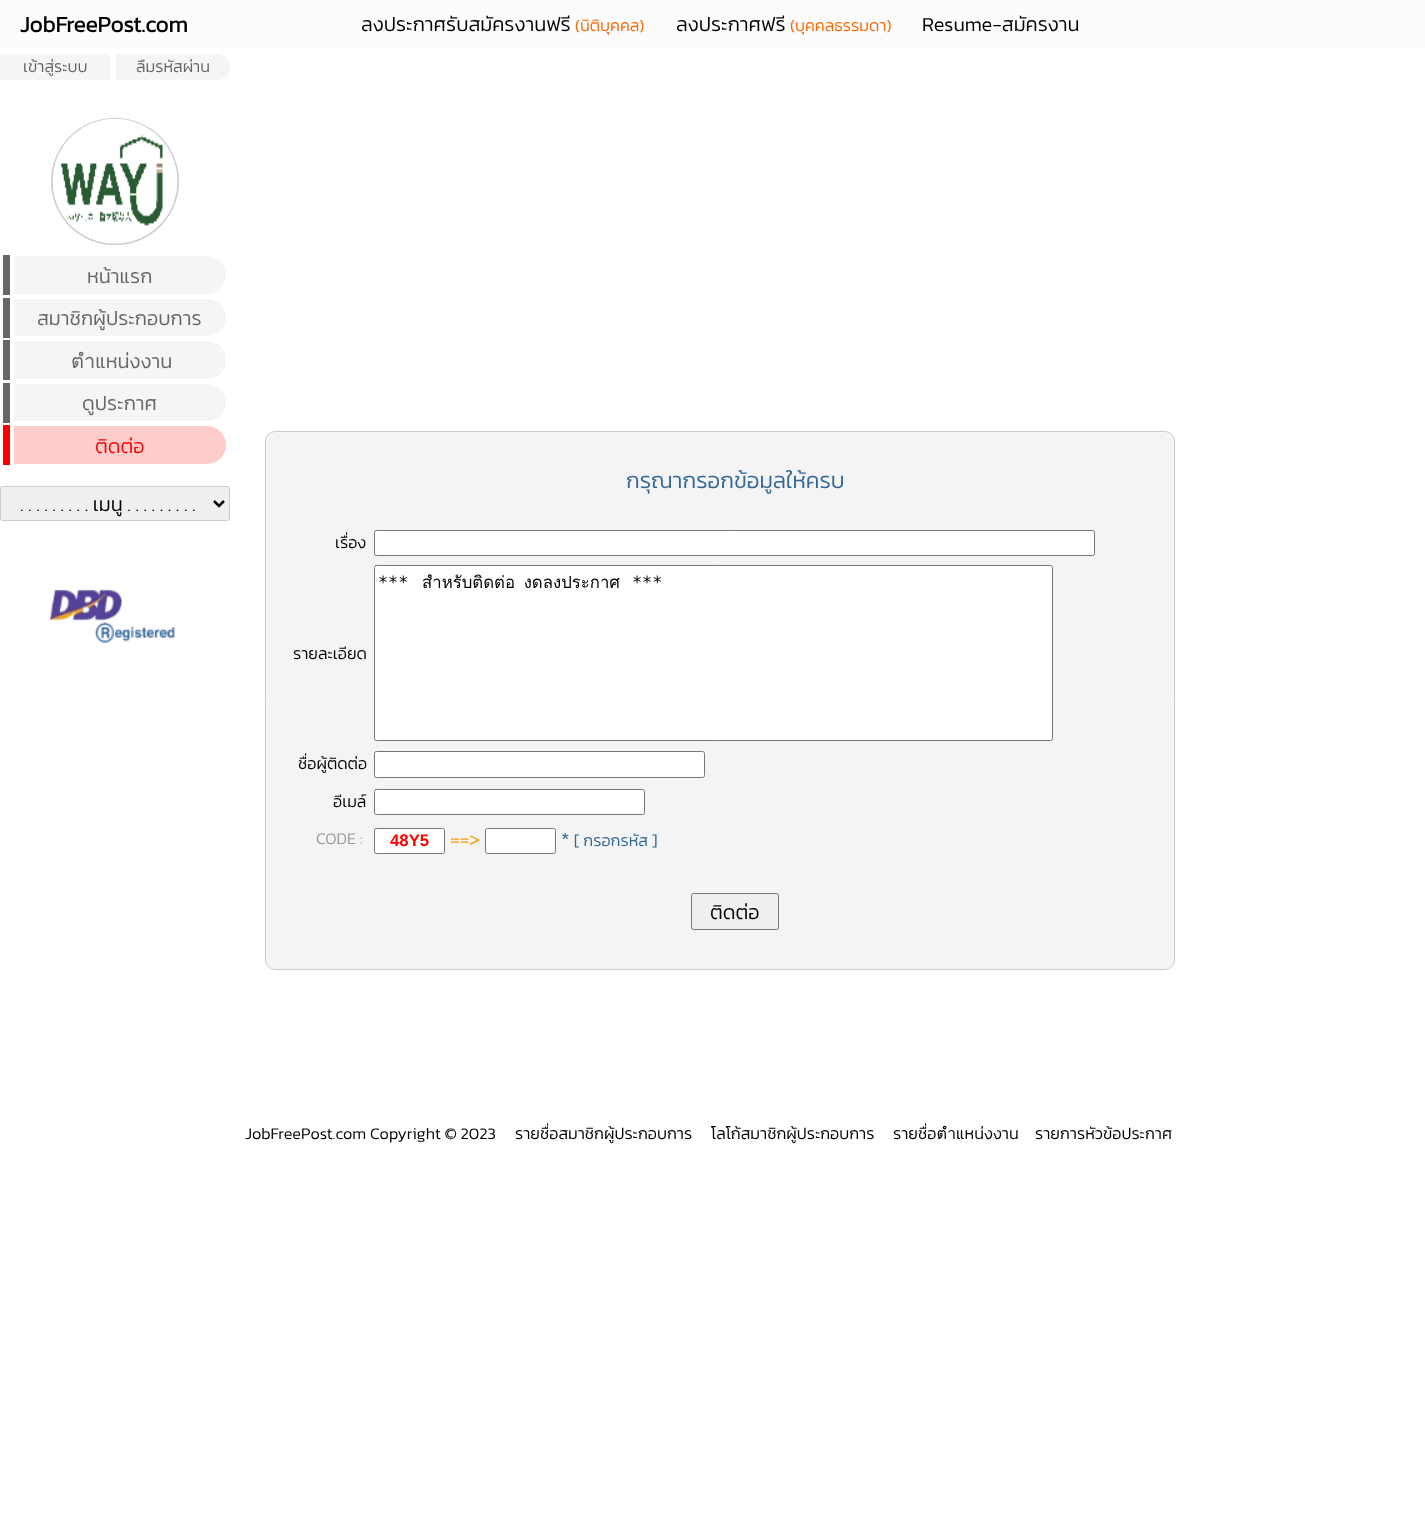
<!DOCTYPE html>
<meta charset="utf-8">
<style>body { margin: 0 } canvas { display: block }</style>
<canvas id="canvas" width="1425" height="1534"></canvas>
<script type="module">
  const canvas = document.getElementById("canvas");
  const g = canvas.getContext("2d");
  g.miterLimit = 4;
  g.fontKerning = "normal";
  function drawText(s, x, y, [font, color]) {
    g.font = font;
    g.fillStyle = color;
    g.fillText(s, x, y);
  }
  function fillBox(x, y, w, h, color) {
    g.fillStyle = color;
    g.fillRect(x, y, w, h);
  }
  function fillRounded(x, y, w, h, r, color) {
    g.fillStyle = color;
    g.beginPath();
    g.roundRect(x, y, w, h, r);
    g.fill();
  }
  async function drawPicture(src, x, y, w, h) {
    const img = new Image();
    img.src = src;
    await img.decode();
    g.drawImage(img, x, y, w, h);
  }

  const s1 = ["bold 22.5px Kanit", "#000000"];
  const s2 = ["300 20px Kanit", "#000000"];
  const s3 = ["300 16.25px Kanit", "#FF6600"];
  const s4 = ["300 16.25px Kanit", "#666666"];
  const s5 = ["300 20px Kanit", "#666666"];
  const s6 = ["300 20px Kanit", "#FF0000"];
  const s7 = ["300 22.5px Kanit", "#336699"];
  const s8 = ["300 16.25px Kanit", "#000000"];
  const s9 = ["16.75px DejaVu Sans Mono", "#000000"];
  const s10 = ["16.75px Loma", "#000000"];
  const s11 = ["300 16.25px Kanit", "#999999"];
  const s12 = ["bold 16.75px Liberation Sans", "#FF0000"];
  const s13 = ["300 20px Kanit", "#FF9900"];
  const s14 = ["300 20px Kanit", "#336699"];
  const s15 = ["300 16.25px Kanit", "#336699"];

  fillBox(0, 0, 1425, 1534, "#FFFFFF");
  fillBox(0, 0, 1425, 48, "#FCFCFC");
  drawText("JobFreePost.com", 20, 32, s1);
  drawText("ลงประกาศรับสมัครงานฟรี", 361, 31, s2);
  drawText("(นิติบุคคล)", 575, 31, s3);
  drawText("ลงประกาศฟรี", 676, 31, s2);
  drawText("(บุคคลธรรมดา)", 790, 31, s3);
  drawText("Resume-สมัครงาน", 922, 31, s2);
  fillBox(0, 54, 110, 26, "#F5F5F5");
  drawText("เข้าสู่ระบบ", 23, 72, s4);
  g.fillStyle = "#F5F5F5";
  g.beginPath();
  g.roundRect(116, 54, 114, 26, [0, 13, 13, 0]);
  g.fill();
  drawText("ลืมรหัสผ่าน", 136, 72, s4);
  fillRounded(51, 118, 128, 127, 63.5, "#CCCCCC");
  await drawPicture("pic1.png", 52, 119, 126, 125);
  fillBox(3, 255, 7, 40, "#666666");
  g.fillStyle = "#F5F5F5";
  g.beginPath();
  g.roundRect(14, 256, 212, 38, [0, 19, 19, 0]);
  g.fill();
  drawText("หน้าแรก", 87, 283, s5);
  fillBox(3, 298, 7, 40, "#666666");
  g.fillStyle = "#F5F5F5";
  g.beginPath();
  g.roundRect(14, 299, 212, 37, [0, 18.5, 18.5, 0]);
  g.fill();
  drawText("สมาชิกผู้ประกอบการ", 37, 325, s5);
  fillBox(3, 340, 7, 40, "#666666");
  g.fillStyle = "#F5F5F5";
  g.beginPath();
  g.roundRect(14, 341, 212, 38, [0, 19, 19, 0]);
  g.fill();
  drawText("ตำแหน่งงาน", 71, 368, s5);
  fillBox(3, 383, 7, 40, "#666666");
  g.fillStyle = "#F5F5F5";
  g.beginPath();
  g.roundRect(14, 384, 212, 37, [0, 18.5, 18.5, 0]);
  g.fill();
  drawText("ดูประกาศ", 82, 410, s5);
  fillBox(3, 425, 7, 40, "#FF0000");
  g.fillStyle = "#FFCCCC";
  g.beginPath();
  g.roundRect(14, 426, 212, 38, [0, 19, 19, 0]);
  g.fill();
  drawText("ติดต่อ", 95, 453, s6);
  g.fillStyle = "#EFEFEF";
  g.beginPath();
  g.roundRect(0.5, 486.5, 229, 34, 2);
  g.fill();
  g.strokeStyle = "#CCCCCC";
  g.stroke();
  g.beginPath();
  g.moveTo(214, 501);
  g.lineTo(219, 506);
  g.lineTo(224, 501);
  g.strokeStyle = "#000000";
  g.lineWidth = 2.5;
  g.stroke();
  drawText(". . . . . . . . . เมนู . . . . . . . . .", 20, 511, s2);
  await drawPicture("pic2.png", 49, 589, 127, 54);
  g.fillStyle = "#F4F4F4";
  g.beginPath();
  g.roundRect(265.5, 431.5, 909, 538, 9.5);
  g.fill();
  g.strokeStyle = "#CCCCCC";
  g.lineWidth = 1;
  g.stroke();
  drawText("กรุณากรอกข้อมูลให้ครบ", 626, 488, s7);
  drawText("เรื่อง", 335, 548, s8);
  g.fillStyle = "#FFFFFF";
  g.beginPath();
  g.roundRect(374.5, 530.5, 720, 25, 2);
  g.fill();
  g.strokeStyle = "#767676";
  g.stroke();
  g.beginPath();
  g.roundRect(374.5, 565.5, 678, 175, 2);
  g.fill();
  g.stroke();
  drawText("***", 378, 588, s9);
  g.wordSpacing = "3px";
  drawText("สำหรับติดต่อ งดลงประกาศ", 422, 588, s10);
  g.wordSpacing = "0px";
  drawText("***", 632, 588, s9);
  drawText("รายละเอียด", 293, 659, s8);
  drawText("ชื่อผู้ติดต่อ", 298, 769, s8);
  g.fillStyle = "#FFFFFF";
  g.beginPath();
  g.roundRect(374.5, 751.5, 330, 26, 2);
  g.fill();
  g.stroke();
  drawText("อีเมล์", 333, 807, s8);
  g.fillStyle = "#FFFFFF";
  g.beginPath();
  g.roundRect(374.5, 789.5, 270, 25, 2);
  g.fill();
  g.stroke();
  drawText("CODE :", 316, 844, s11);
  g.fillStyle = "#FFFFFF";
  g.beginPath();
  g.roundRect(374.5, 828.5, 70, 25, 2);
  g.fill();
  g.stroke();
  drawText("48Y5", 390, 846, s12);
  drawText("==>", 450, 846, s13);
  g.fillStyle = "#FFFFFF";
  g.beginPath();
  g.roundRect(485.5, 828.5, 70, 25, 2);
  g.fill();
  g.stroke();
  drawText("*", 561, 846, s14);
  drawText("[ กรอกรหัส ]", 574, 846, s15);
  g.fillStyle = "#EFEFEF";
  g.beginPath();
  g.roundRect(691.5, 893.5, 87, 36, 2);
  g.fill();
  g.stroke();
  drawText("ติดต่อ", 710, 919, s2);
  drawText("JobFreePost.com Copyright © 2023", 245, 1139, s8);
  drawText("รายชื่อสมาชิกผู้ประกอบการ", 515, 1139, s8);
  drawText("โลโก้สมาชิกผู้ประกอบการ", 711, 1139, s8);
  drawText("รายชื่อตำแหน่งงาน", 893, 1139, s8);
  drawText("รายการหัวข้อประกาศ", 1035, 1139, s8);
</script>
